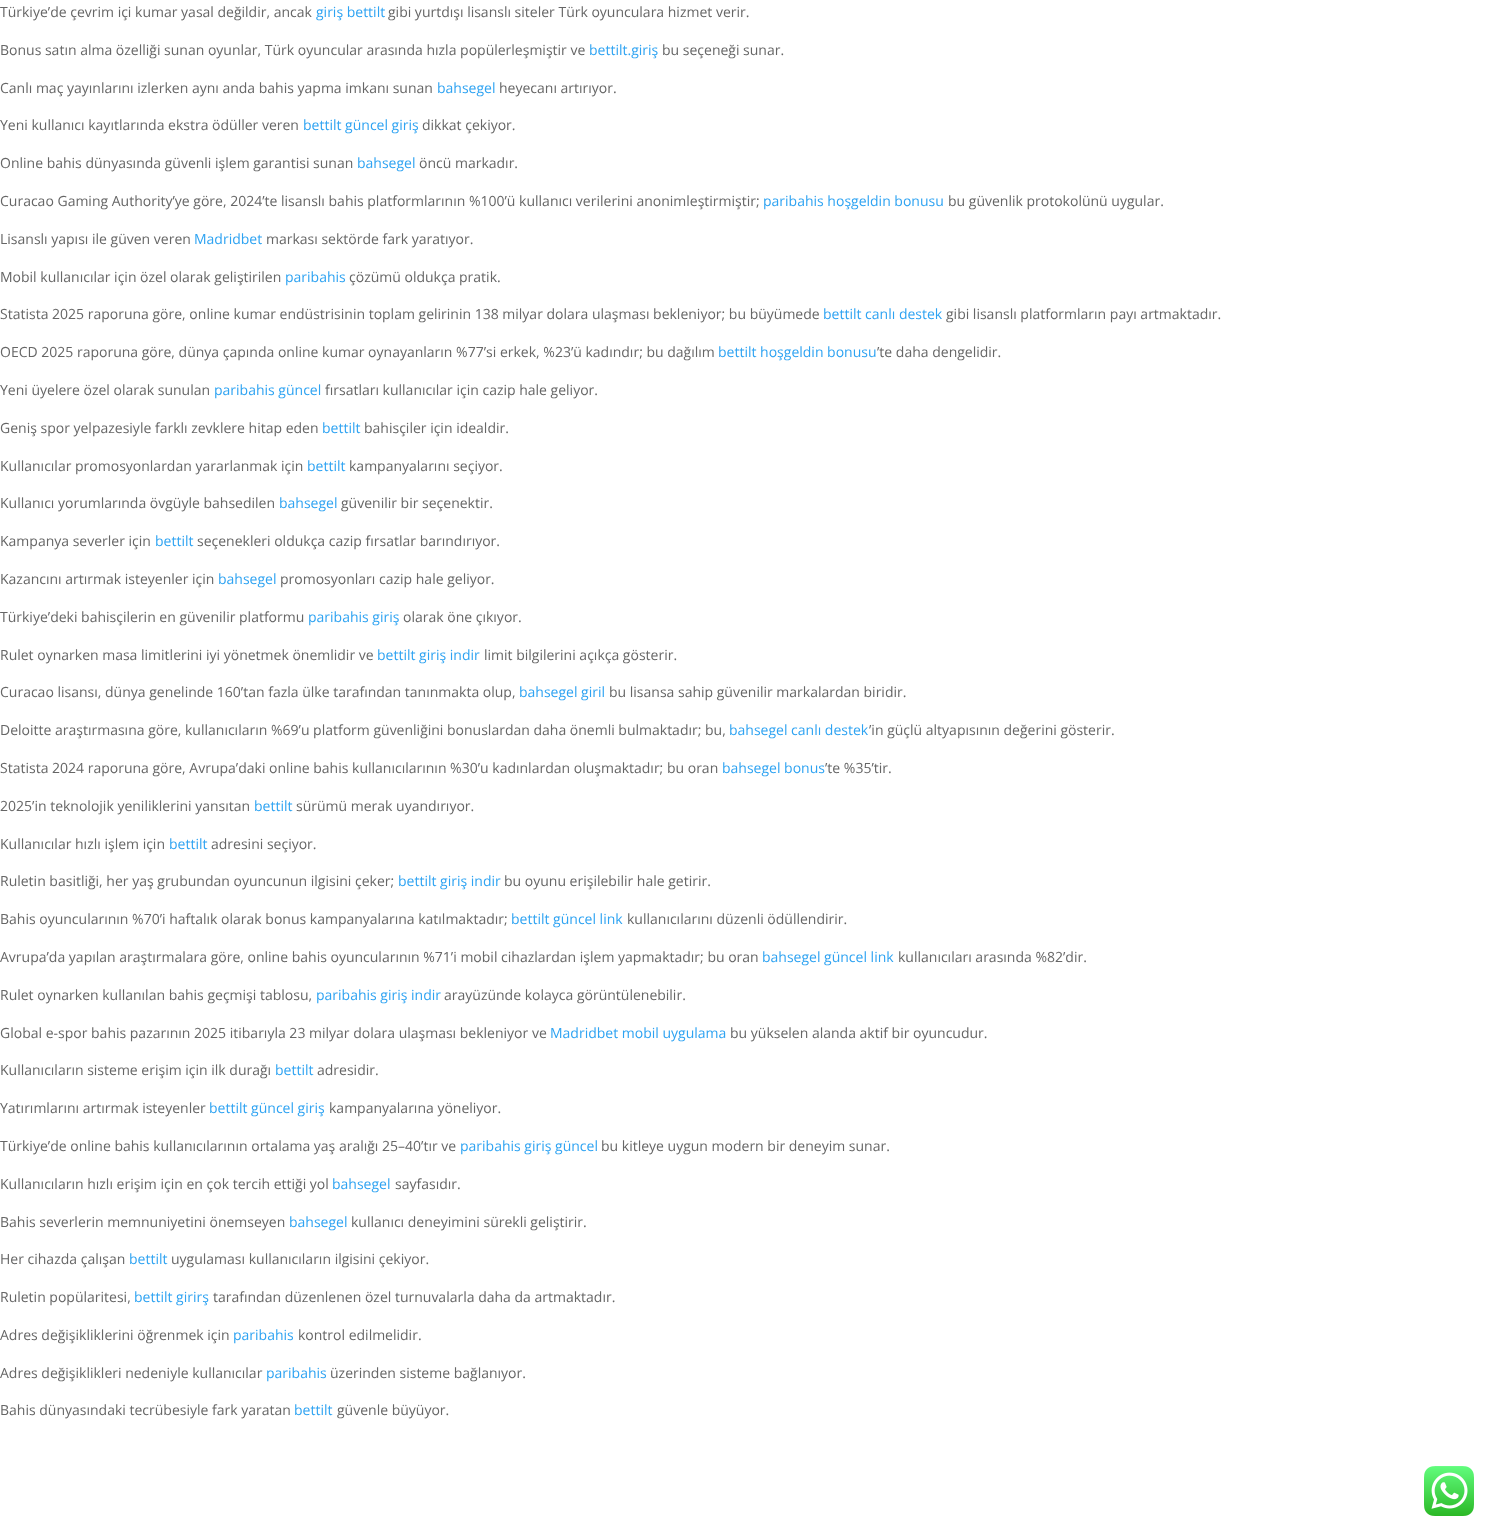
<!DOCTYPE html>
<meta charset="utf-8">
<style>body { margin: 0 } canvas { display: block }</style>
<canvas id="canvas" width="1489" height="1531"></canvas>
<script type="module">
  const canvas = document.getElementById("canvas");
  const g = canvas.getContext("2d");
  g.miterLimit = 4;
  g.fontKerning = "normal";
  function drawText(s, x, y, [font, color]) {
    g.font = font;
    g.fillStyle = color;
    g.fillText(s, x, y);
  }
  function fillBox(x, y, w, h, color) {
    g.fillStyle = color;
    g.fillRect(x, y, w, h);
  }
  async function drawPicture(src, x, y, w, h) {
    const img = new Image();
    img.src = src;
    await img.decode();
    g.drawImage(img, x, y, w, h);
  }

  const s1 = ["14px Open Sans", "#666666"];
  const s2 = ["14px Open Sans", "#2EA3F2"];

  fillBox(0, 0, 1489, 1531, "#FFFFFF");
  drawText("Türkiye’de çevrim içi kumar yasal değildir, ancak", 0, 17, s1);
  drawText("giriş bettilt", 316, 17, s2);
  drawText("gibi yurtdışı lisanslı siteler Türk oyunculara hizmet verir.", 388, 17, s1);
  drawText("Bonus satın alma özelliği sunan oyunlar, Türk oyuncular arasında hızla popülerleşmiştir ve", 0, 55, s1);
  drawText("bettilt.giriş", 589, 55, s2);
  drawText("bu seçeneği sunar.", 662, 55, s1);
  drawText("Canlı maç yayınlarını izlerken aynı anda bahis yapma imkanı sunan", 0, 93, s1);
  drawText("bahsegel", 437, 93, s2);
  drawText("heyecanı artırıyor.", 499, 93, s1);
  drawText("Yeni kullanıcı kayıtlarında ekstra ödüller veren", 0, 130, s1);
  drawText("bettilt güncel giriş", 303, 130, s2);
  drawText("dikkat çekiyor.", 422, 130, s1);
  drawText("Online bahis dünyasında güvenli işlem garantisi sunan", 0, 168, s1);
  drawText("bahsegel", 357, 168, s2);
  drawText("öncü markadır.", 419, 168, s1);
  drawText("Curacao Gaming Authority’ye göre, 2024’te lisanslı bahis platformlarının %100’ü kullanıcı verilerini anonimleştirmiştir;", 0, 206, s1);
  drawText("paribahis hoşgeldin bonusu", 763, 206, s2);
  drawText("bu güvenlik protokolünü uygular.", 948, 206, s1);
  drawText("Lisanslı yapısı ile güven veren", 0, 244, s1);
  drawText("Madridbet", 194, 244, s2);
  drawText("markası sektörde fark yaratıyor.", 266, 244, s1);
  drawText("Mobil kullanıcılar için özel olarak geliştirilen", 0, 282, s1);
  drawText("paribahis", 285, 282, s2);
  drawText("çözümü oldukça pratik.", 349, 282, s1);
  drawText("Statista 2025 raporuna göre, online kumar endüstrisinin toplam gelirinin 138 milyar dolara ulaşması bekleniyor; bu büyümede", 0, 319, s1);
  drawText("bettilt canlı destek", 823, 319, s2);
  drawText("gibi lisanslı platformların payı artmaktadır.", 946, 319, s1);
  drawText("OECD 2025 raporuna göre, dünya çapında online kumar oynayanların %77’si erkek, %23’ü kadındır; bu dağılım", 0, 357, s1);
  drawText("bettilt hoşgeldin bonusu", 718, 357, s2);
  drawText("’te daha dengelidir.", 877, 357, s1);
  drawText("Yeni üyelere özel olarak sunulan", 0, 395, s1);
  drawText("paribahis güncel", 214, 395, s2);
  drawText("fırsatları kullanıcılar için cazip hale geliyor.", 325, 395, s1);
  drawText("Geniş spor yelpazesiyle farklı zevklere hitap eden", 0, 433, s1);
  drawText("bettilt", 322, 433, s2);
  drawText("bahisçiler için idealdir.", 364, 433, s1);
  drawText("Kullanıcılar promosyonlardan yararlanmak için", 0, 471, s1);
  drawText("bettilt", 307, 471, s2);
  drawText("kampanyalarını seçiyor.", 349, 471, s1);
  drawText("Kullanıcı yorumlarında övgüyle bahsedilen", 0, 508, s1);
  drawText("bahsegel", 279, 508, s2);
  drawText("güvenilir bir seçenektir.", 341, 508, s1);
  drawText("Kampanya severler için", 0, 546, s1);
  drawText("bettilt", 155, 546, s2);
  drawText("seçenekleri oldukça cazip fırsatlar barındırıyor.", 197, 546, s1);
  drawText("Kazancını artırmak isteyenler için", 0, 584, s1);
  drawText("bahsegel", 218, 584, s2);
  drawText("promosyonları cazip hale geliyor.", 280, 584, s1);
  drawText("Türkiye’deki bahisçilerin en güvenilir platformu", 0, 622, s1);
  drawText("paribahis giriş", 308, 622, s2);
  drawText("olarak öne çıkıyor.", 403, 622, s1);
  drawText("Rulet oynarken masa limitlerini iyi yönetmek önemlidir ve", 0, 660, s1);
  drawText("bettilt giriş indir", 377, 660, s2);
  drawText("limit bilgilerini açıkça gösterir.", 484, 660, s1);
  drawText("Curacao lisansı, dünya genelinde 160’tan fazla ülke tarafından tanınmakta olup,", 0, 697, s1);
  drawText("bahsegel giril", 519, 697, s2);
  drawText("bu lisansa sahip güvenilir markalardan biridir.", 609, 697, s1);
  drawText("Deloitte araştırmasına göre, kullanıcıların %69’u platform güvenliğini bonuslardan daha önemli bulmaktadır; bu,", 0, 735, s1);
  drawText("bahsegel canlı destek", 729, 735, s2);
  drawText("’in güçlü altyapısının değerini gösterir.", 869, 735, s1);
  drawText("Statista 2024 raporuna göre, Avrupa’daki online bahis kullanıcılarının %30’u kadınlardan oluşmaktadır; bu oran", 0, 773, s1);
  drawText("bahsegel bonus", 722, 773, s2);
  drawText("’te %35’tir.", 825, 773, s1);
  drawText("2025’in teknolojik yeniliklerini yansıtan", 0, 811, s1);
  drawText("bettilt", 254, 811, s2);
  drawText("sürümü merak uyandırıyor.", 296, 811, s1);
  drawText("Kullanıcılar hızlı işlem için", 0, 849, s1);
  drawText("bettilt", 169, 849, s2);
  drawText("adresini seçiyor.", 211, 849, s1);
  drawText("Ruletin basitliği, her yaş grubundan oyuncunun ilgisini çeker;", 0, 886, s1);
  drawText("bettilt giriş indir", 398, 886, s2);
  drawText("bu oyunu erişilebilir hale getirir.", 504, 886, s1);
  drawText("Bahis oyuncularının %70’i haftalık olarak bonus kampanyalarına katılmaktadır;", 0, 924, s1);
  drawText("bettilt güncel link", 511, 924, s2);
  drawText("kullanıcılarını düzenli ödüllendirir.", 627, 924, s1);
  drawText("Avrupa’da yapılan araştırmalara göre, online bahis oyuncularının %71’i mobil cihazlardan işlem yapmaktadır; bu oran", 0, 962, s1);
  drawText("bahsegel güncel link", 762, 962, s2);
  drawText("kullanıcıları arasında %82’dir.", 898, 962, s1);
  drawText("Rulet oynarken kullanılan bahis geçmişi tablosu,", 0, 1000, s1);
  drawText("paribahis giriş indir", 316, 1000, s2);
  drawText("arayüzünde kolayca görüntülenebilir.", 444, 1000, s1);
  drawText("Global e-spor bahis pazarının 2025 itibarıyla 23 milyar dolara ulaşması bekleniyor ve", 0, 1038, s1);
  drawText("Madridbet mobil uygulama", 550, 1038, s2);
  drawText("bu yükselen alanda aktif bir oyuncudur.", 730, 1038, s1);
  drawText("Kullanıcıların sisteme erişim için ilk durağı", 0, 1075, s1);
  drawText("bettilt", 275, 1075, s2);
  drawText("adresidir.", 317, 1075, s1);
  drawText("Yatırımlarını artırmak isteyenler", 0, 1113, s1);
  drawText("bettilt güncel giriş", 209, 1113, s2);
  drawText("kampanyalarına yöneliyor.", 329, 1113, s1);
  drawText("Türkiye’de online bahis kullanıcılarının ortalama yaş aralığı 25–40’tır ve", 0, 1151, s1);
  drawText("paribahis giriş güncel", 460, 1151, s2);
  drawText("bu kitleye uygun modern bir deneyim sunar.", 601, 1151, s1);
  drawText("Kullanıcıların hızlı erişim için en çok tercih ettiği yol", 0, 1189, s1);
  drawText("bahsegel", 332, 1189, s2);
  drawText("sayfasıdır.", 395, 1189, s1);
  drawText("Bahis severlerin memnuniyetini önemseyen", 0, 1227, s1);
  drawText("bahsegel", 289, 1227, s2);
  drawText("kullanıcı deneyimini sürekli geliştirir.", 351, 1227, s1);
  drawText("Her cihazda çalışan", 0, 1264, s1);
  drawText("bettilt", 129, 1264, s2);
  drawText("uygulaması kullanıcıların ilgisini çekiyor.", 171, 1264, s1);
  drawText("Ruletin popülaritesi,", 0, 1302, s1);
  drawText("bettilt girirş", 134, 1302, s2);
  drawText("tarafından düzenlenen özel turnuvalarla daha da artmaktadır.", 213, 1302, s1);
  drawText("Adres değişikliklerini öğrenmek için", 0, 1340, s1);
  drawText("paribahis", 233, 1340, s2);
  drawText("kontrol edilmelidir.", 298, 1340, s1);
  drawText("Adres değişiklikleri nedeniyle kullanıcılar", 0, 1378, s1);
  drawText("paribahis", 266, 1378, s2);
  drawText("üzerinden sisteme bağlanıyor.", 330, 1378, s1);
  drawText("Bahis dünyasındaki tecrübesiyle fark yaratan", 0, 1415, s1);
  drawText("bettilt", 294, 1415, s2);
  drawText("güvenle büyüyor.", 337, 1415, s1);
  await drawPicture("pic1.png", 1424, 1466, 50, 50);
</script>
